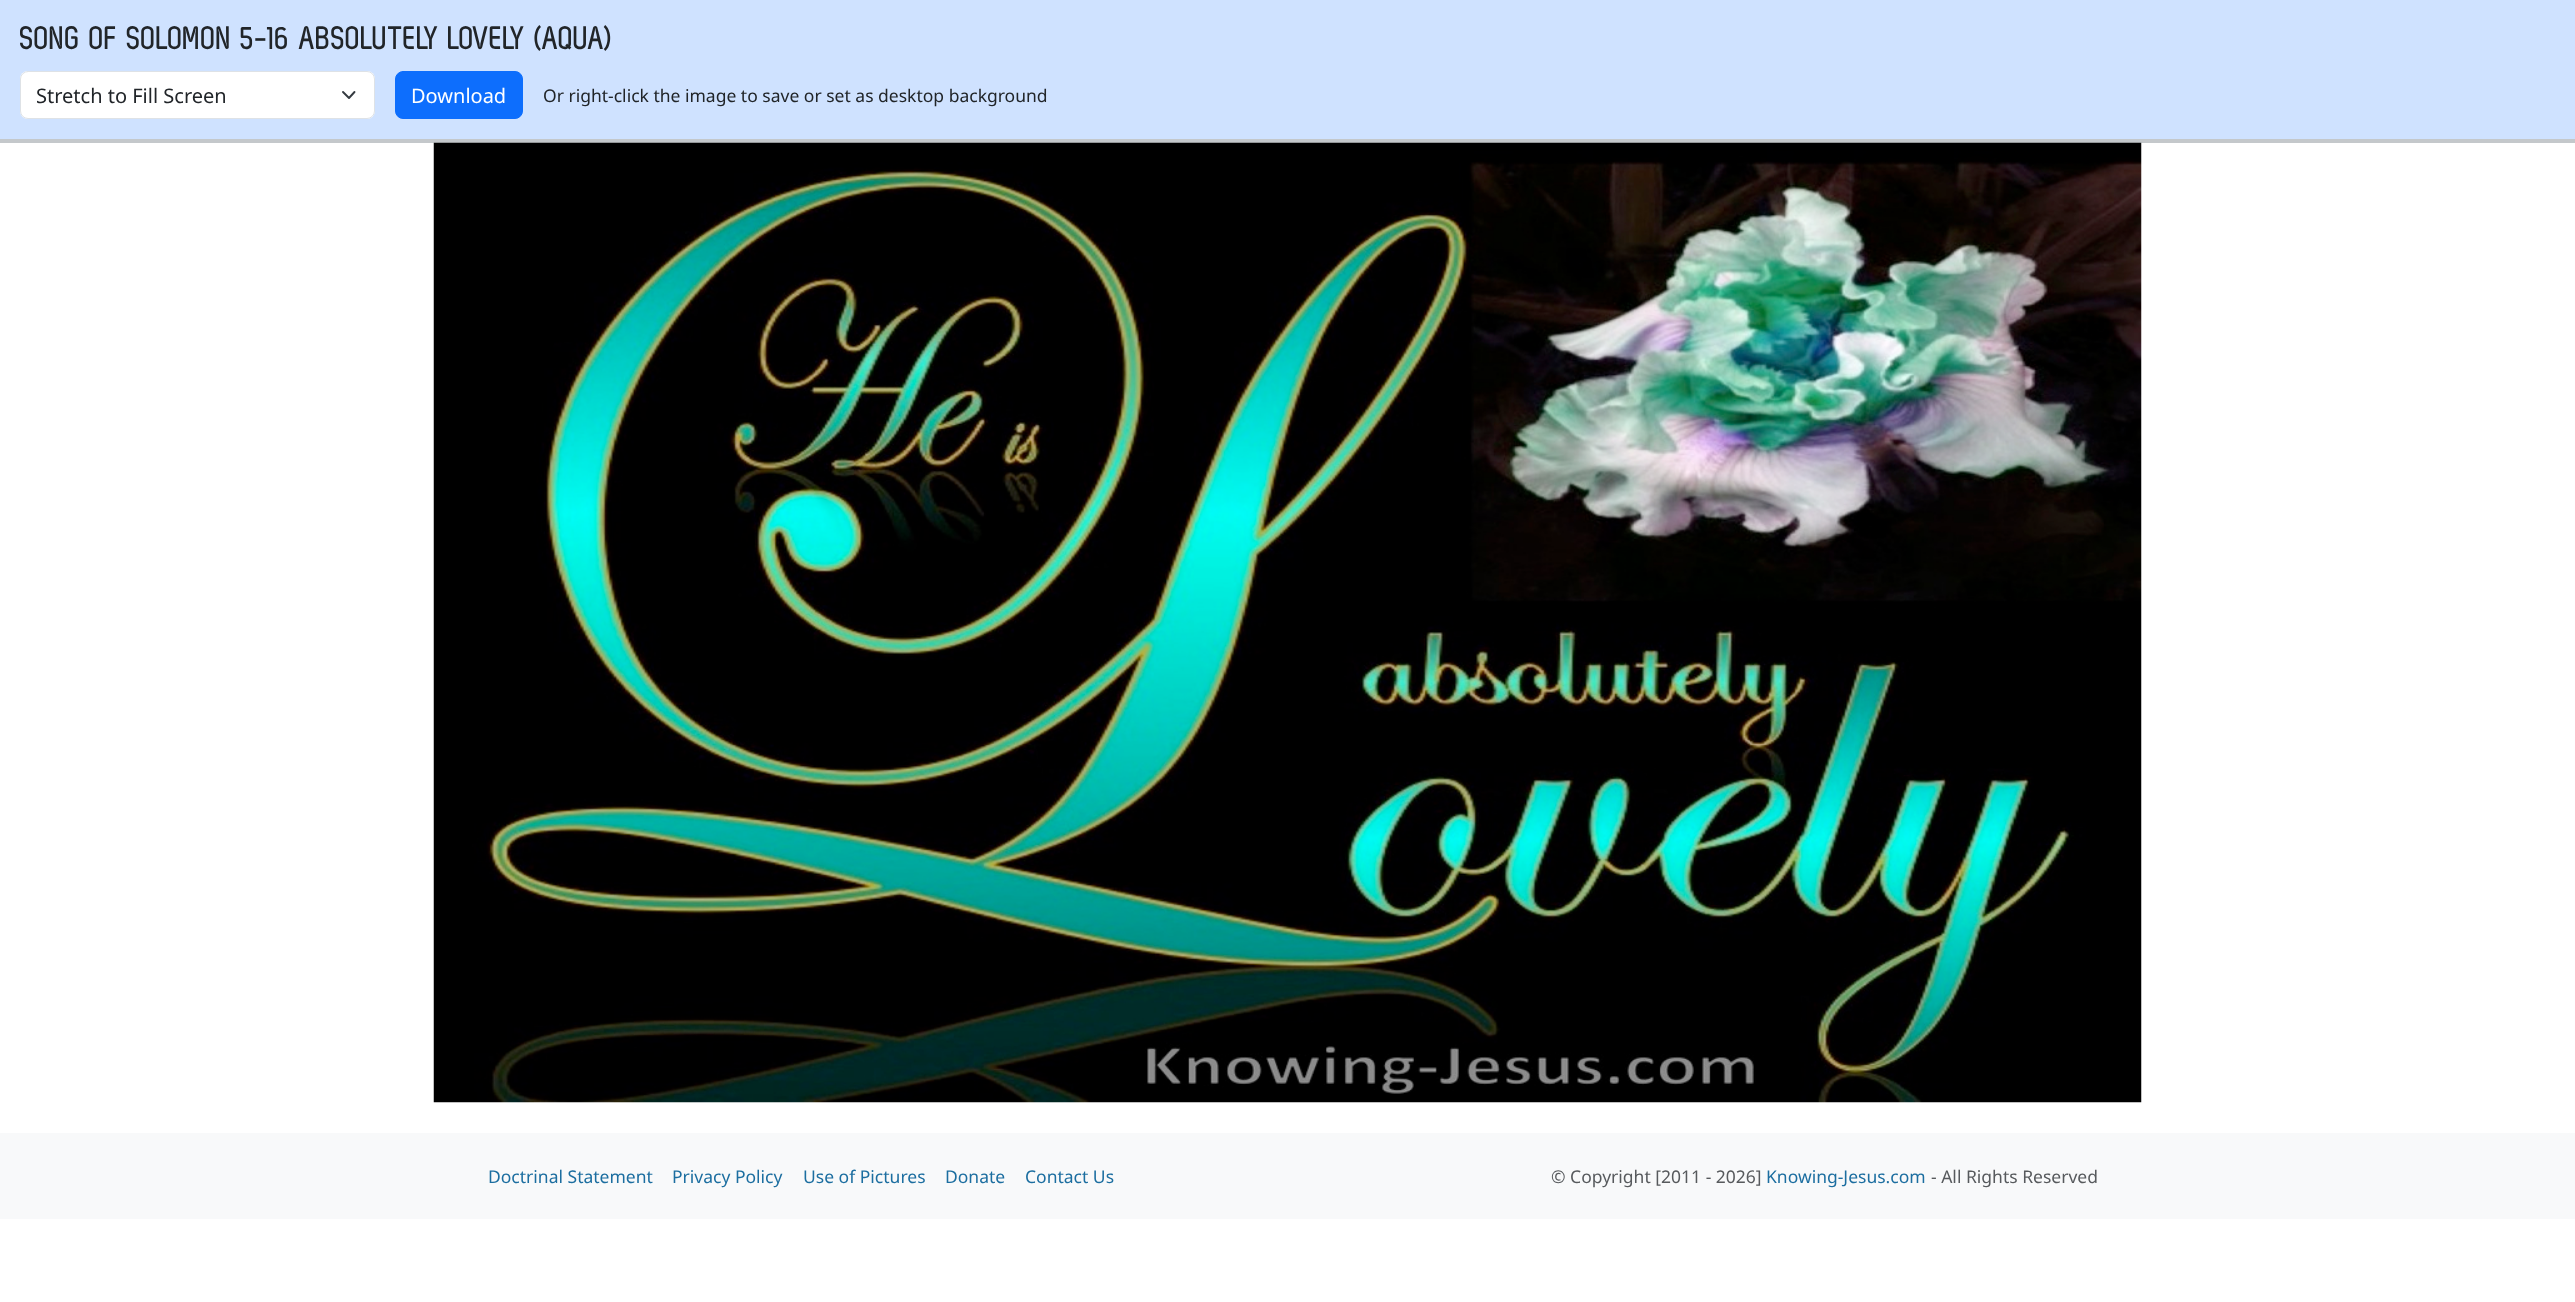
<!DOCTYPE html>
<meta charset="utf-8">
<style>body { margin: 0 } canvas { display: block }</style>
<canvas id="canvas" width="2575" height="1302"></canvas>
<script type="module">
  const canvas = document.getElementById("canvas");
  const g = canvas.getContext("2d");
  g.miterLimit = 4;
  g.fontKerning = "normal";
  function drawText(s, x, y, [font, color]) {
    g.font = font;
    g.fillStyle = color;
    g.fillText(s, x, y);
  }
  function fillBox(x, y, w, h, color) {
    g.fillStyle = color;
    g.fillRect(x, y, w, h);
  }
  function fillRounded(x, y, w, h, r, color) {
    g.fillStyle = color;
    g.beginPath();
    g.roundRect(x, y, w, h, r);
    g.fill();
  }
  async function drawPicture(src, x, y, w, h) {
    const img = new Image();
    img.src = src;
    await img.decode();
    g.drawImage(img, x, y, w, h);
  }

  const s1 = ["bold 32.5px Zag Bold", "#212529"];
  const s2 = ["20px Noto Sans", "#212529"];
  const s3 = ["20px Noto Sans", "#FFFFFF"];
  const s4 = ["17.5px Noto Sans", "#212529"];
  const s5 = ["17.5px Noto Sans", "#1C6EA0"];
  const s6 = ["17.5px Noto Sans", "#575A5D"];

  fillBox(0, 0, 2575, 1302, "#FFFFFF");
  fillBox(0, 0, 2575, 139, "#CFE2FF");
  fillBox(0, 139, 2575, 4, "#C4C8CB");
  drawText("SONG OF SOLOMON 5-16 ABSOLUTELY LOVELY (AQUA)", 20, 49, s1);
  fillRounded(20, 71, 355, 48, 8, "#FFFFFF");
  g.beginPath();
  g.moveTo(343, 92);
  g.lineTo(349, 98);
  g.lineTo(354.5, 92);
  g.strokeStyle = "#343A40";
  g.lineWidth = 1.9;
  g.lineCap = "round";
  g.lineJoin = "round";
  g.stroke();
  g.beginPath();
  g.roundRect(20.5, 71.5, 354, 47, 7.5);
  g.strokeStyle = "#DEE2E6";
  g.lineWidth = 1;
  g.lineJoin = "miter";
  g.stroke();
  drawText("Stretch to Fill Screen", 36, 103, s2);
  g.fillStyle = "#0D6EFD";
  g.beginPath();
  g.roundRect(395.5, 71.5, 127, 47, 7.5);
  g.fill();
  g.strokeStyle = "#0D6EFD";
  g.stroke();
  drawText("Download", 411, 103, s3);
  drawText("Or right-click the image to save or set as desktop background", 543, 102, s4);
  await drawPicture("pic1.png", 433, 142, 1709, 961);
  fillBox(0, 1133, 2575, 86, "#F8F9FA");
  drawText("Doctrinal Statement", 488, 1183, s5);
  drawText("Privacy Policy", 672, 1183, s5);
  drawText("Use of Pictures", 803, 1183, s5);
  drawText("Donate", 945, 1183, s5);
  drawText("Contact Us", 1025, 1183, s5);
  drawText("© Copyright [2011 - 2026]", 1551, 1183, s6);
  drawText("Knowing-Jesus.com", 1766, 1183, s5);
  drawText("- All Rights Reserved", 1931, 1183, s6);
</script>
